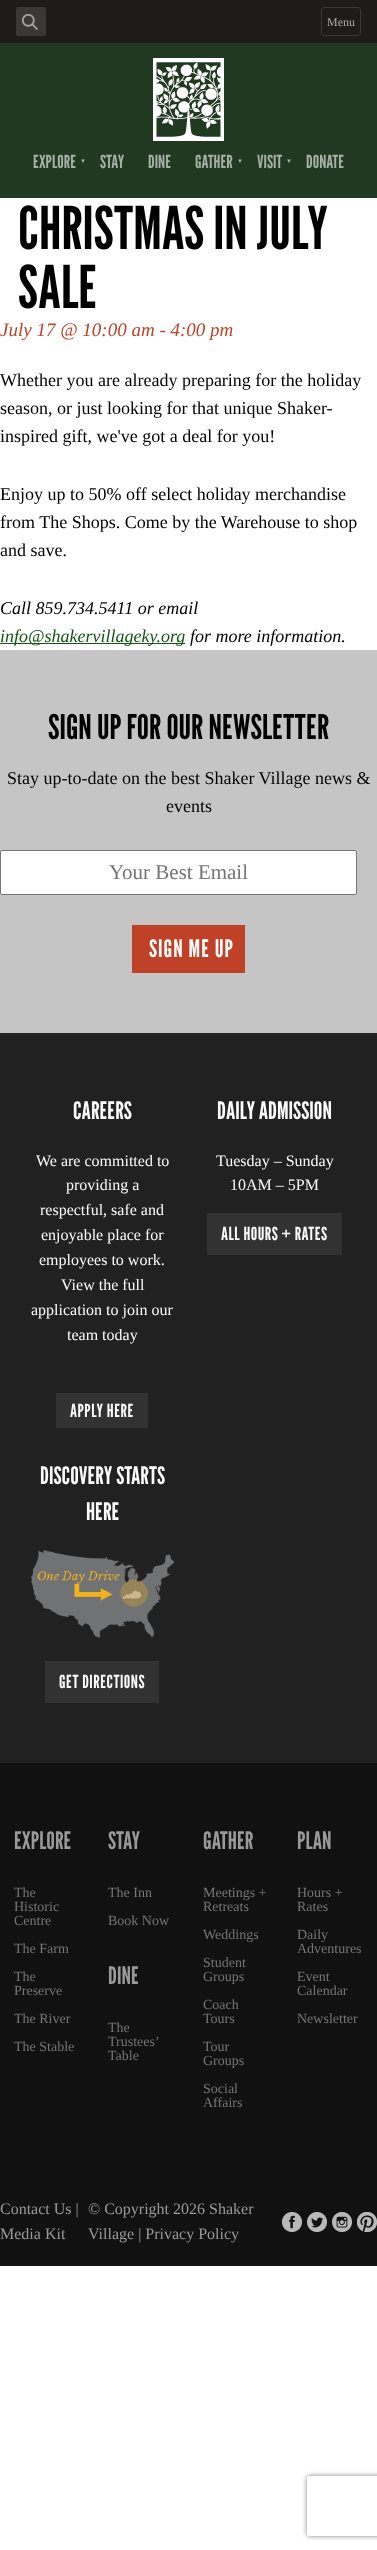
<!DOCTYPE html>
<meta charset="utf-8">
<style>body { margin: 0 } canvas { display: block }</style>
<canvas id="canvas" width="377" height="2550"></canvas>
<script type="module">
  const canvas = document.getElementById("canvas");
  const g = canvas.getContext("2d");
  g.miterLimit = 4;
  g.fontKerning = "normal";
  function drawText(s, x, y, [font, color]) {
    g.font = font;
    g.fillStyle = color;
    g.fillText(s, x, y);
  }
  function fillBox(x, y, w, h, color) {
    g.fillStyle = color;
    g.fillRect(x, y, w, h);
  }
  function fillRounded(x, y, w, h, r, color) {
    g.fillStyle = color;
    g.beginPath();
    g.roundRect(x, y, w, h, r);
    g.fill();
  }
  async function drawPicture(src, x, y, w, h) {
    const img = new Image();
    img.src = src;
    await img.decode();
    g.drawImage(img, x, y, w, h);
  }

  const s1 = ["12px Liberation Serif", "#ADADAD"];
  const s2 = ["18px League Gothic", "#A6B0A6"];
  const s3 = ["6px Liberation Sans", "#A6B0A6"];
  const s4 = ["59px League Gothic", "#000000"];
  const s5 = ["italic 19px Liberation Serif", "#BF4127"];
  const s6 = ["18px Liberation Serif", "#000000"];
  const s7 = ["italic 18px Liberation Serif", "#000000"];
  const s8 = ["italic 18px Liberation Serif", "#125712"];
  const s9 = ["34px League Gothic", "#000000"];
  const s10 = ["21px Liberation Serif", "#757575"];
  const s11 = ["24px League Gothic", "#FCFCFC"];
  const s12 = ["16px Liberation Serif", "#FCFCFC"];
  const s13 = ["18px League Gothic", "#FCFCFC"];
  const s14 = ["24px League Gothic", "#999999"];
  const s15 = ["14px Liberation Serif", "#757575"];
  const s16 = ["16px Liberation Serif", "#999999"];

  fillBox(0, 0, 377, 2550, "#FFFFFF");
  fillBox(0, 0, 377, 43, "#1F1B19");
  fillRounded(16, 7, 30, 29, 2, "#3A3735");
  await drawPicture("pic1.png", 22, 14, 16, 16);
  g.beginPath();
  g.roundRect(321.5, 7.5, 39, 28, 2.5);
  g.strokeStyle = "#3A3735";
  g.stroke();
  drawText("Menu", 327, 26, s1);
  fillBox(0, 43, 377, 155, "#203920");
  await drawPicture("pic2.png", 153, 58, 71, 83);
  drawText("EXPLORE", 33, 168, s2);
  drawText("▼", 80, 163, s3);
  drawText("STAY", 100, 168, s2);
  drawText("DINE", 148, 168, s2);
  drawText("GATHER", 195, 168, s2);
  drawText("▼", 237, 163, s3);
  drawText("VISIT", 257, 168, s2);
  drawText("▼", 286, 163, s3);
  drawText("DONATE", 306, 168, s2);
  drawText("CHRISTMAS IN JULY", 18, 249, s4);
  drawText("SALE", 18, 308, s4);
  drawText("July 17 @ 10:00 am - 4:00 pm", 0, 336, s5);
  drawText("Whether you are already preparing for the holiday", 0, 386, s6);
  drawText("season, or just looking for that unique Shaker-", 0, 414, s6);
  drawText("inspired gift, we've got a deal for you!", 0, 442, s6);
  drawText("Enjoy up to 50% off select holiday merchandise", 0, 500, s6);
  drawText("from The Shops. Come by the Warehouse to shop", 0, 528, s6);
  drawText("and save.", 0, 556, s6);
  drawText("Call 859.734.5411 or email", 0, 614, s7);
  fillBox(0, 643, 185, 1, "#125712");
  drawText("info@shakervillageky.org", 0, 642, s8);
  drawText("for more information.", 190, 642, s7);
  fillBox(0, 650, 377, 383, "#C5C5C5");
  drawText("SIGN UP FOR OUR NEWSLETTER", 48, 739, s9);
  drawText("Stay up-to-date on the best Shaker Village news &", 7, 784, s6);
  drawText("events", 166, 812, s6);
  g.fillStyle = "#FFFFFF";
  g.beginPath();
  g.roundRect(0.5, 850.5, 356, 44, 1.5);
  g.fill();
  g.strokeStyle = "#767676";
  g.stroke();
  drawText("Your Best Email", 109, 879, s10);
  g.save();
  g.beginPath();
  g.moveTo(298, 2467);
  g.lineTo(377, 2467);
  g.lineTo(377, 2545);
  g.lineTo(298, 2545);
  g.closePath();
  g.moveTo(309, 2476);
  g.lineTo(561, 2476);
  g.bezierCurveTo(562, 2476, 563, 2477, 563, 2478);
  g.lineTo(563, 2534);
  g.bezierCurveTo(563, 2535, 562, 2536, 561, 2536);
  g.lineTo(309, 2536);
  g.bezierCurveTo(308, 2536, 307, 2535, 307, 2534);
  g.lineTo(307, 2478);
  g.bezierCurveTo(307, 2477, 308, 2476, 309, 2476);
  g.closePath();
  g.clip("evenodd");
  g.fillStyle = "#808080";
  g.filter = "blur(2.5px)";
  g.beginPath();
  g.roundRect(307, 2476, 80, 60, 2);
  g.fill();
  g.filter = "none";
  g.restore();
  fillBox(132, 925, 113, 48, "#BF4127");
  g.letterSpacing = "1px";
  drawText("SIGN ME UP", 149, 957, s11);
  fillBox(0, 1033, 377, 730, "#212121");
  g.letterSpacing = "0px";
  drawText("CAREERS", 73, 1119, s11);
  drawText("We are committed to", 36, 1166, s12);
  drawText("providing a", 66, 1190, s12);
  drawText("respectful, safe and", 40, 1215, s12);
  drawText("enjoyable place for", 41, 1240, s12);
  drawText("employees to work.", 39, 1265, s12);
  drawText("View the full", 61, 1290, s12);
  drawText("application to join our", 31, 1315, s12);
  drawText("team today", 67, 1340, s12);
  fillBox(56, 1393, 92, 35, "#323232");
  g.letterSpacing = "0.5px";
  drawText("APPLY HERE", 70, 1417, s13);
  g.letterSpacing = "0px";
  drawText("DAILY ADMISSION", 217, 1119, s11);
  drawText("Tuesday – Sunday", 216, 1166, s12);
  drawText("10AM – 5PM", 230, 1190, s12);
  fillBox(207, 1213, 135, 42, "#323232");
  g.letterSpacing = "0.5px";
  drawText("ALL HOURS + RATES", 221, 1240, s13);
  g.letterSpacing = "0px";
  drawText("DISCOVERY STARTS", 40, 1484, s11);
  drawText("HERE", 86, 1520, s11);
  await drawPicture("pic3.png", 31, 1550, 143, 88);
  fillBox(45, 1661, 114, 42, "#323232");
  g.letterSpacing = "0.5px";
  drawText("GET DIRECTIONS", 59, 1688, s13);
  fillBox(0, 1763, 377, 503, "#111111");
  g.letterSpacing = "0px";
  drawText("EXPLORE", 14, 1849, s14);
  drawText("The", 14, 1897, s15);
  drawText("Historic", 14, 1911, s15);
  drawText("Centre", 14, 1925, s15);
  drawText("The Farm", 14, 1953, s15);
  drawText("The", 14, 1981, s15);
  drawText("Preserve", 14, 1995, s15);
  drawText("The River", 14, 2023, s15);
  drawText("The Stable", 14, 2051, s15);
  drawText("STAY", 108, 1849, s14);
  drawText("The Inn", 108, 1897, s15);
  drawText("Book Now", 108, 1925, s15);
  drawText("DINE", 108, 1984, s14);
  drawText("The", 108, 2032, s15);
  drawText("Trustees’", 108, 2046, s15);
  drawText("Table", 108, 2060, s15);
  drawText("GATHER", 203, 1849, s14);
  drawText("Meetings +", 203, 1897, s15);
  drawText("Retreats", 203, 1911, s15);
  drawText("Weddings", 203, 1939, s15);
  drawText("Student", 203, 1967, s15);
  drawText("Groups", 203, 1981, s15);
  drawText("Coach", 203, 2009, s15);
  drawText("Tours", 203, 2023, s15);
  drawText("Tour", 203, 2051, s15);
  drawText("Groups", 203, 2065, s15);
  drawText("Social", 203, 2093, s15);
  drawText("Affairs", 203, 2107, s15);
  drawText("PLAN", 297, 1849, s14);
  drawText("Hours +", 297, 1897, s15);
  drawText("Rates", 297, 1911, s15);
  drawText("Daily", 297, 1939, s15);
  drawText("Adventures", 297, 1953, s15);
  drawText("Event", 297, 1981, s15);
  drawText("Calendar", 297, 1995, s15);
  drawText("Newsletter", 297, 2023, s15);
  drawText("Contact Us |", 0, 2214, s16);
  drawText("Media Kit", 0, 2239, s16);
  drawText("© Copyright 2026 Shaker", 88, 2214, s16);
  drawText("Village | Privacy Policy", 88, 2239, s16);
  await drawPicture("pic4.png", 282, 2212, 20, 20);
  await drawPicture("pic5.png", 307, 2212, 20, 20);
  await drawPicture("pic6.png", 332, 2212, 20, 20);
  await drawPicture("pic7.png", 357, 2212, 20, 20);
</script>
